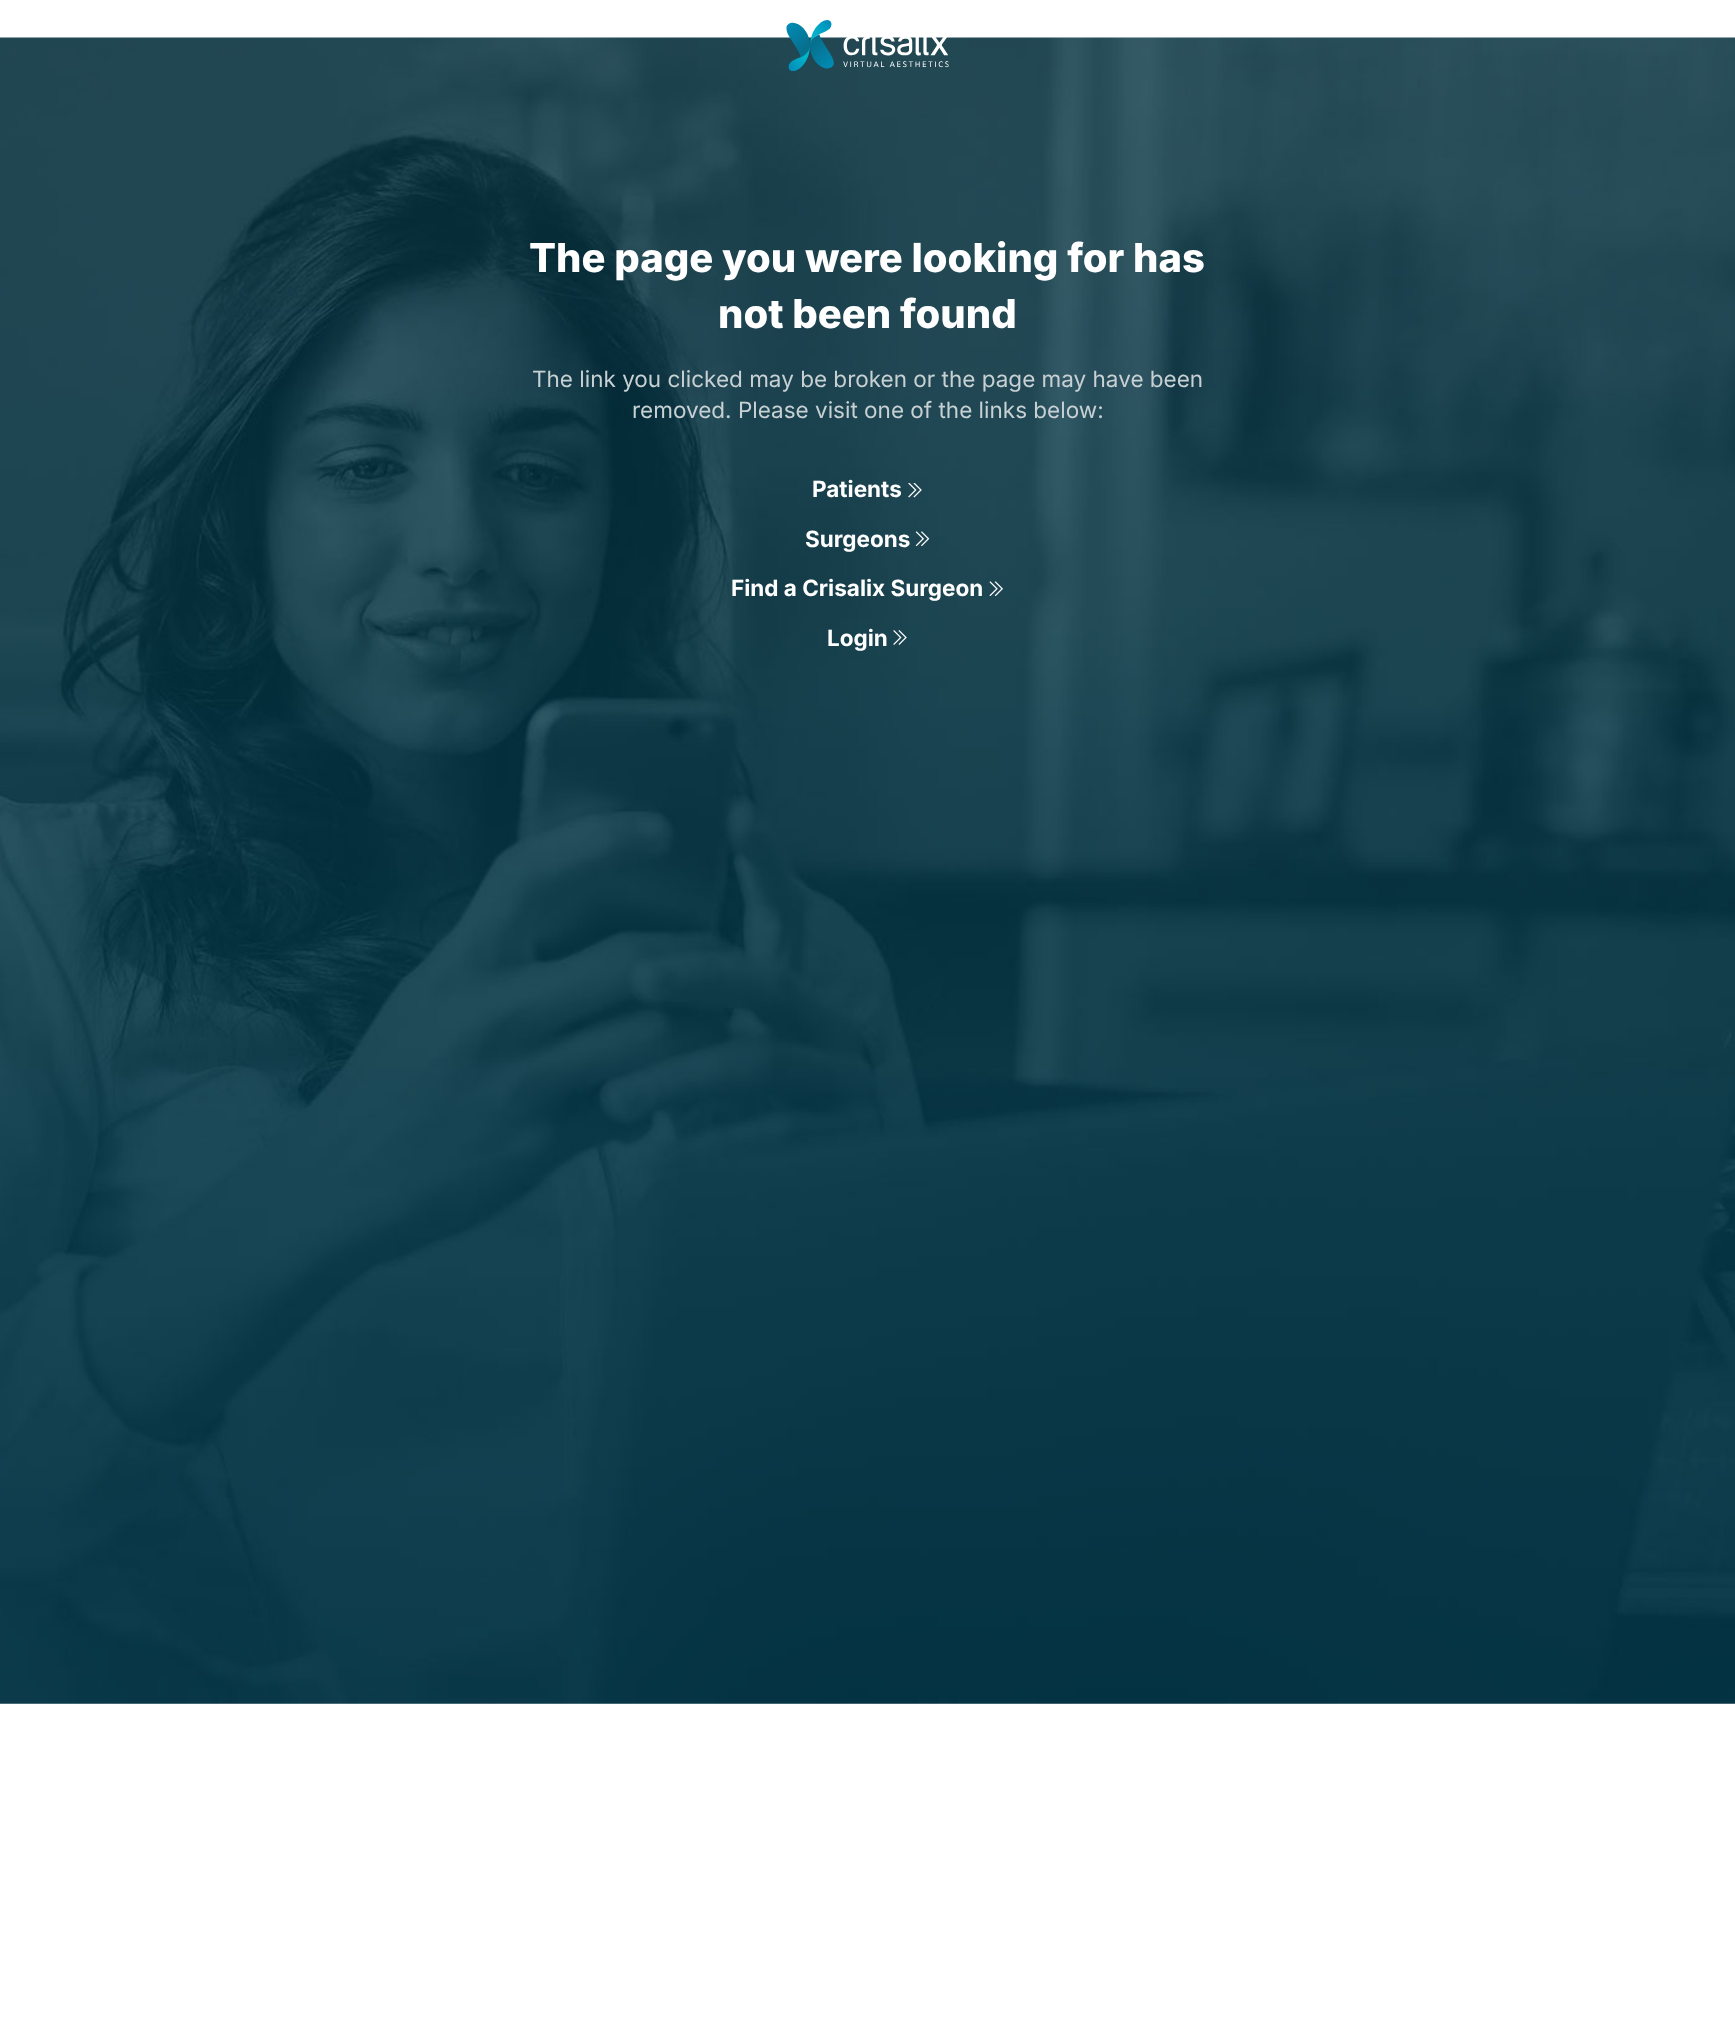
<!DOCTYPE html>
<meta charset="utf-8">
<style>body { margin: 0 } canvas { display: block }</style>
<canvas id="canvas" width="1735" height="2035"></canvas>
<script type="module">
  const canvas = document.getElementById("canvas");
  const g = canvas.getContext("2d");
  g.miterLimit = 4;
  g.fontKerning = "normal";
  function drawText(s, x, y, [font, color]) {
    g.font = font;
    g.fillStyle = color;
    g.fillText(s, x, y);
  }
  function fillBox(x, y, w, h, color) {
    g.fillStyle = color;
    g.fillRect(x, y, w, h);
  }
  async function drawPicture(src, x, y, w, h) {
    const img = new Image();
    img.src = src;
    await img.decode();
    g.drawImage(img, x, y, w, h);
  }

  const s1 = ["800 40px Inter", "#FFFFFF"];
  const s2 = ["22.5px Inter", "#C7D0D3"];
  const s3 = ["bold 22.5px Inter", "#FFFFFF"];

  fillBox(0, 0, 1735, 2035, "#FFFFFF");
  await drawPicture("pic1.png", 0, 37, 1735, 1667);
  await drawPicture("pic2.png", 786, 20, 163, 51);
  drawText("The page you were looking for has", 529, 272, s1);
  drawText("not been found", 718, 328, s1);
  drawText("The link you clicked may be broken or the page may have been", 532, 387, s2);
  drawText("removed. Please visit one of the links below:", 632, 418, s2);
  drawText("Patients", 812, 497, s3);
  await drawPicture("pic3.png", 908, 483, 14, 15);
  drawText("Surgeons", 805, 547, s3);
  await drawPicture("pic4.png", 915, 531, 15, 15);
  drawText("Find a Crisalix Surgeon", 731, 596, s3);
  await drawPicture("pic5.png", 989, 581, 14, 15);
  drawText("Login", 827, 646, s3);
  await drawPicture("pic6.png", 893, 630, 14, 15);
</script>
